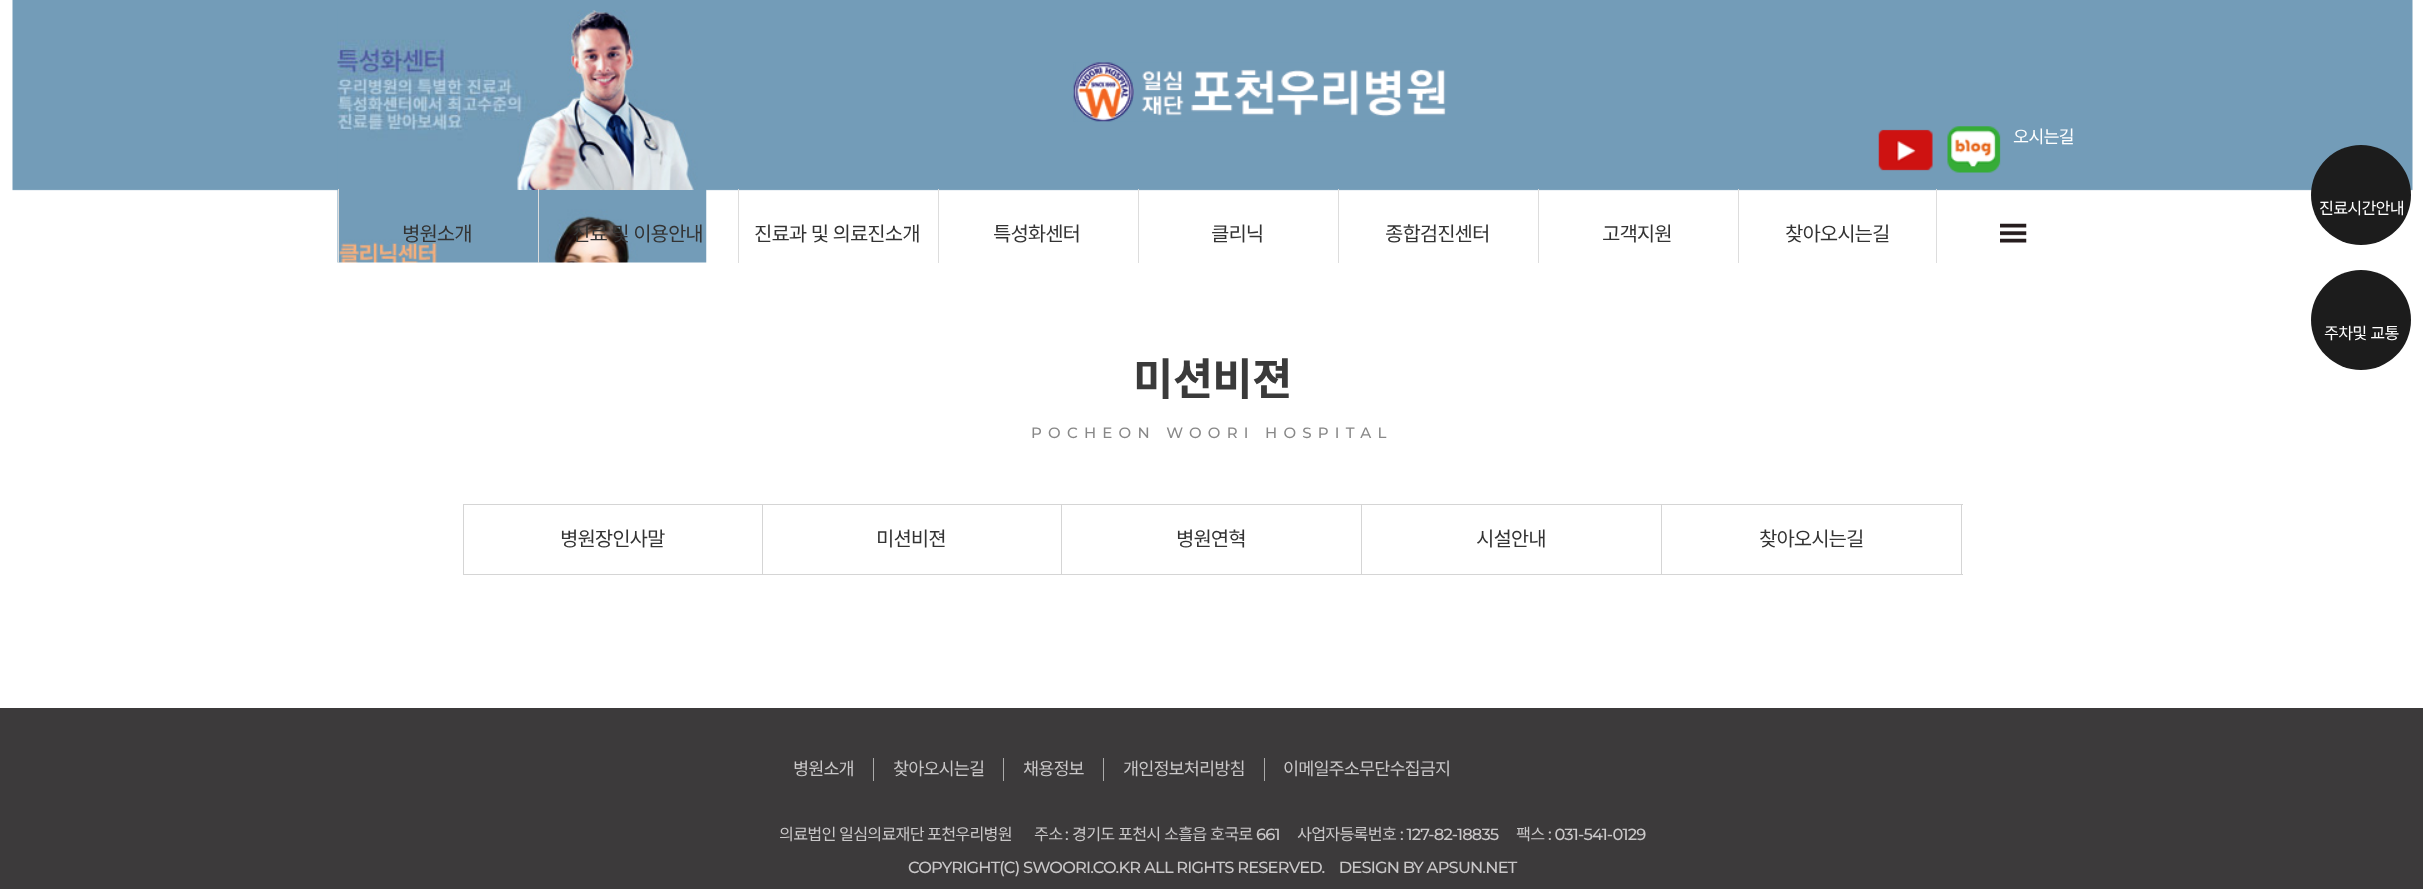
<!DOCTYPE html>
<meta charset="utf-8">
<style>body { margin: 0 } canvas { display: block }</style>
<canvas id="canvas" width="2423" height="889"></canvas>
<script type="module">
  const canvas = document.getElementById("canvas");
  const g = canvas.getContext("2d");
  g.miterLimit = 4;
  g.fontKerning = "normal";
  function drawText(s, x, y, [font, color]) {
    g.font = font;
    g.fillStyle = color;
    g.fillText(s, x, y);
  }
  function fillBox(x, y, w, h, color) {
    g.fillStyle = color;
    g.fillRect(x, y, w, h);
  }
  async function drawPicture(src, x, y, w, h) {
    const img = new Image();
    img.src = src;
    await img.decode();
    g.drawImage(img, x, y, w, h);
  }

  const s1 = ["17.5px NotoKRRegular", "#FFFFFF"];
  const s2 = ["20px NotoKRRegular", "#333333"];
  const s3 = ["bold 44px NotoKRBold", "#3A3A3A"];
  const s4 = ["500 15px Montserrat", "#888888"];
  const s5 = ["16.25px NotoKRRegular", "#FFFFFF"];
  const s6 = ["17.5px NotoKRRegular", "#C9C7C8"];
  const s7 = ["16.25px NotoKRRegular", "#C9C7C8"];
  const s8 = ["500 16.25px Montserrat", "#C9C7C8"];

  fillBox(0, 0, 2423, 889, "#FFFFFF");
  await drawPicture("pic1.png", 12, 0, 2401, 191);
  await drawPicture("pic2.png", 337, 10, 369, 180);
  await drawPicture("pic3.png", 337, 190, 370, 73);
  await drawPicture("pic4.png", 1073, 62, 373, 60);
  await drawPicture("pic5.png", 1878, 129, 55, 42);
  await drawPicture("pic6.png", 1947, 126, 54, 47);
  g.letterSpacing = "-0.9px";
  drawText("오시는길", 2013, 143, s1);
  fillBox(338, 189, 1, 74, "#DDDDDD");
  g.letterSpacing = "-1px";
  drawText("병원소개", 402, 241, s2);
  fillBox(538, 189, 1, 74, "#DDDDDD");
  g.wordSpacing = "1px";
  drawText("진료 및 이용안내", 572, 241, s2);
  fillBox(738, 189, 1, 74, "#DDDDDD");
  drawText("진료과 및 의료진소개", 754, 241, s2);
  fillBox(938, 189, 1, 74, "#DDDDDD");
  g.wordSpacing = "0px";
  drawText("특성화센터", 993, 241, s2);
  fillBox(1138, 189, 1, 74, "#DDDDDD");
  drawText("클리닉", 1211, 241, s2);
  fillBox(1338, 189, 1, 74, "#DDDDDD");
  drawText("종합검진센터", 1385, 241, s2);
  fillBox(1538, 189, 1, 74, "#DDDDDD");
  drawText("고객지원", 1602, 241, s2);
  fillBox(1738, 189, 1, 74, "#DDDDDD");
  drawText("찾아오시는길", 1785, 241, s2);
  fillBox(1936, 189, 1, 74, "#DDDDDD");
  await drawPicture("pic7.png", 2000, 223, 27, 20);
  g.letterSpacing = "-0.8px";
  drawText("미션비젼", 1133, 395, s3);
  g.letterSpacing = "6.25px";
  drawText("POCHEON WOORI HOSPITAL", 1031, 438, s4);
  g.strokeStyle = "#D5D5D5";
  g.strokeRect(463.5, 504.5, 299, 70);
  g.letterSpacing = "-1px";
  drawText("병원장인사말", 560, 546, s2);
  fillBox(763, 504, 1200, 1, "#D5D5D5");
  fillBox(1061, 504, 1, 71, "#D5D5D5");
  fillBox(763, 574, 300, 1, "#D5D5D5");
  drawText("미션비젼", 876, 546, s2);
  fillBox(1361, 504, 1, 71, "#D5D5D5");
  fillBox(1063, 574, 300, 1, "#D5D5D5");
  drawText("병원연혁", 1176, 546, s2);
  fillBox(1661, 504, 1, 71, "#D5D5D5");
  fillBox(1363, 574, 300, 1, "#D5D5D5");
  drawText("시설안내", 1476, 546, s2);
  fillBox(1961, 504, 1, 71, "#D5D5D5");
  fillBox(1663, 574, 300, 1, "#D5D5D5");
  drawText("찾아오시는길", 1759, 546, s2);
  g.fillStyle = "#1C1C1C";
  g.beginPath();
  g.arc(2361, 195, 50, 0, Math.PI * 2);
  g.fill();
  g.letterSpacing = "-0.8px";
  drawText("진료시간안내", 2319, 214, s5);
  g.fillStyle = "#1C1C1C";
  g.beginPath();
  g.arc(2361, 320, 50, 0, Math.PI * 2);
  g.fill();
  g.wordSpacing = "1px";
  drawText("주차및 교통", 2324, 339, s5);
  fillBox(0, 708, 2423, 181, "#3C3A3B");
  fillBox(873, 758, 1, 23, "#AAAAAA");
  g.letterSpacing = "-0.9px";
  g.wordSpacing = "0px";
  drawText("병원소개", 793, 775, s6);
  fillBox(1003, 758, 1, 23, "#AAAAAA");
  drawText("찾아오시는길", 893, 775, s6);
  fillBox(1103, 758, 1, 23, "#AAAAAA");
  drawText("채용정보", 1023, 775, s6);
  fillBox(1264, 758, 1, 23, "#AAAAAA");
  drawText("개인정보처리방침", 1123, 775, s6);
  drawText("이메일주소무단수집금지", 1283, 775, s6);
  g.letterSpacing = "-0.8px";
  drawText("의료법인", 779, 840, s7);
  drawText("일심의료재단", 839, 840, s7);
  drawText("포천우리병원", 927, 840, s7);
  drawText("주소", 1034, 840, s7);
  drawText(":", 1065, 840, s8);
  drawText("경기도", 1072, 840, s7);
  drawText("포천시", 1118, 840, s7);
  drawText("소흘읍", 1164, 840, s7);
  drawText("호국로", 1210, 840, s7);
  drawText("661", 1256, 840, s8);
  drawText("사업자등록번호", 1297, 840, s7);
  drawText(": 127-82-18835", 1400, 840, s8);
  drawText("팩스", 1516, 840, s7);
  drawText(": 031-541-0129", 1548, 840, s8);
  drawText("COPYRIGHT(C) SWOORI.CO.KR ALL RIGHTS RESERVED.    DESIGN BY APSUN.NET", 908, 873, s8);
</script>
